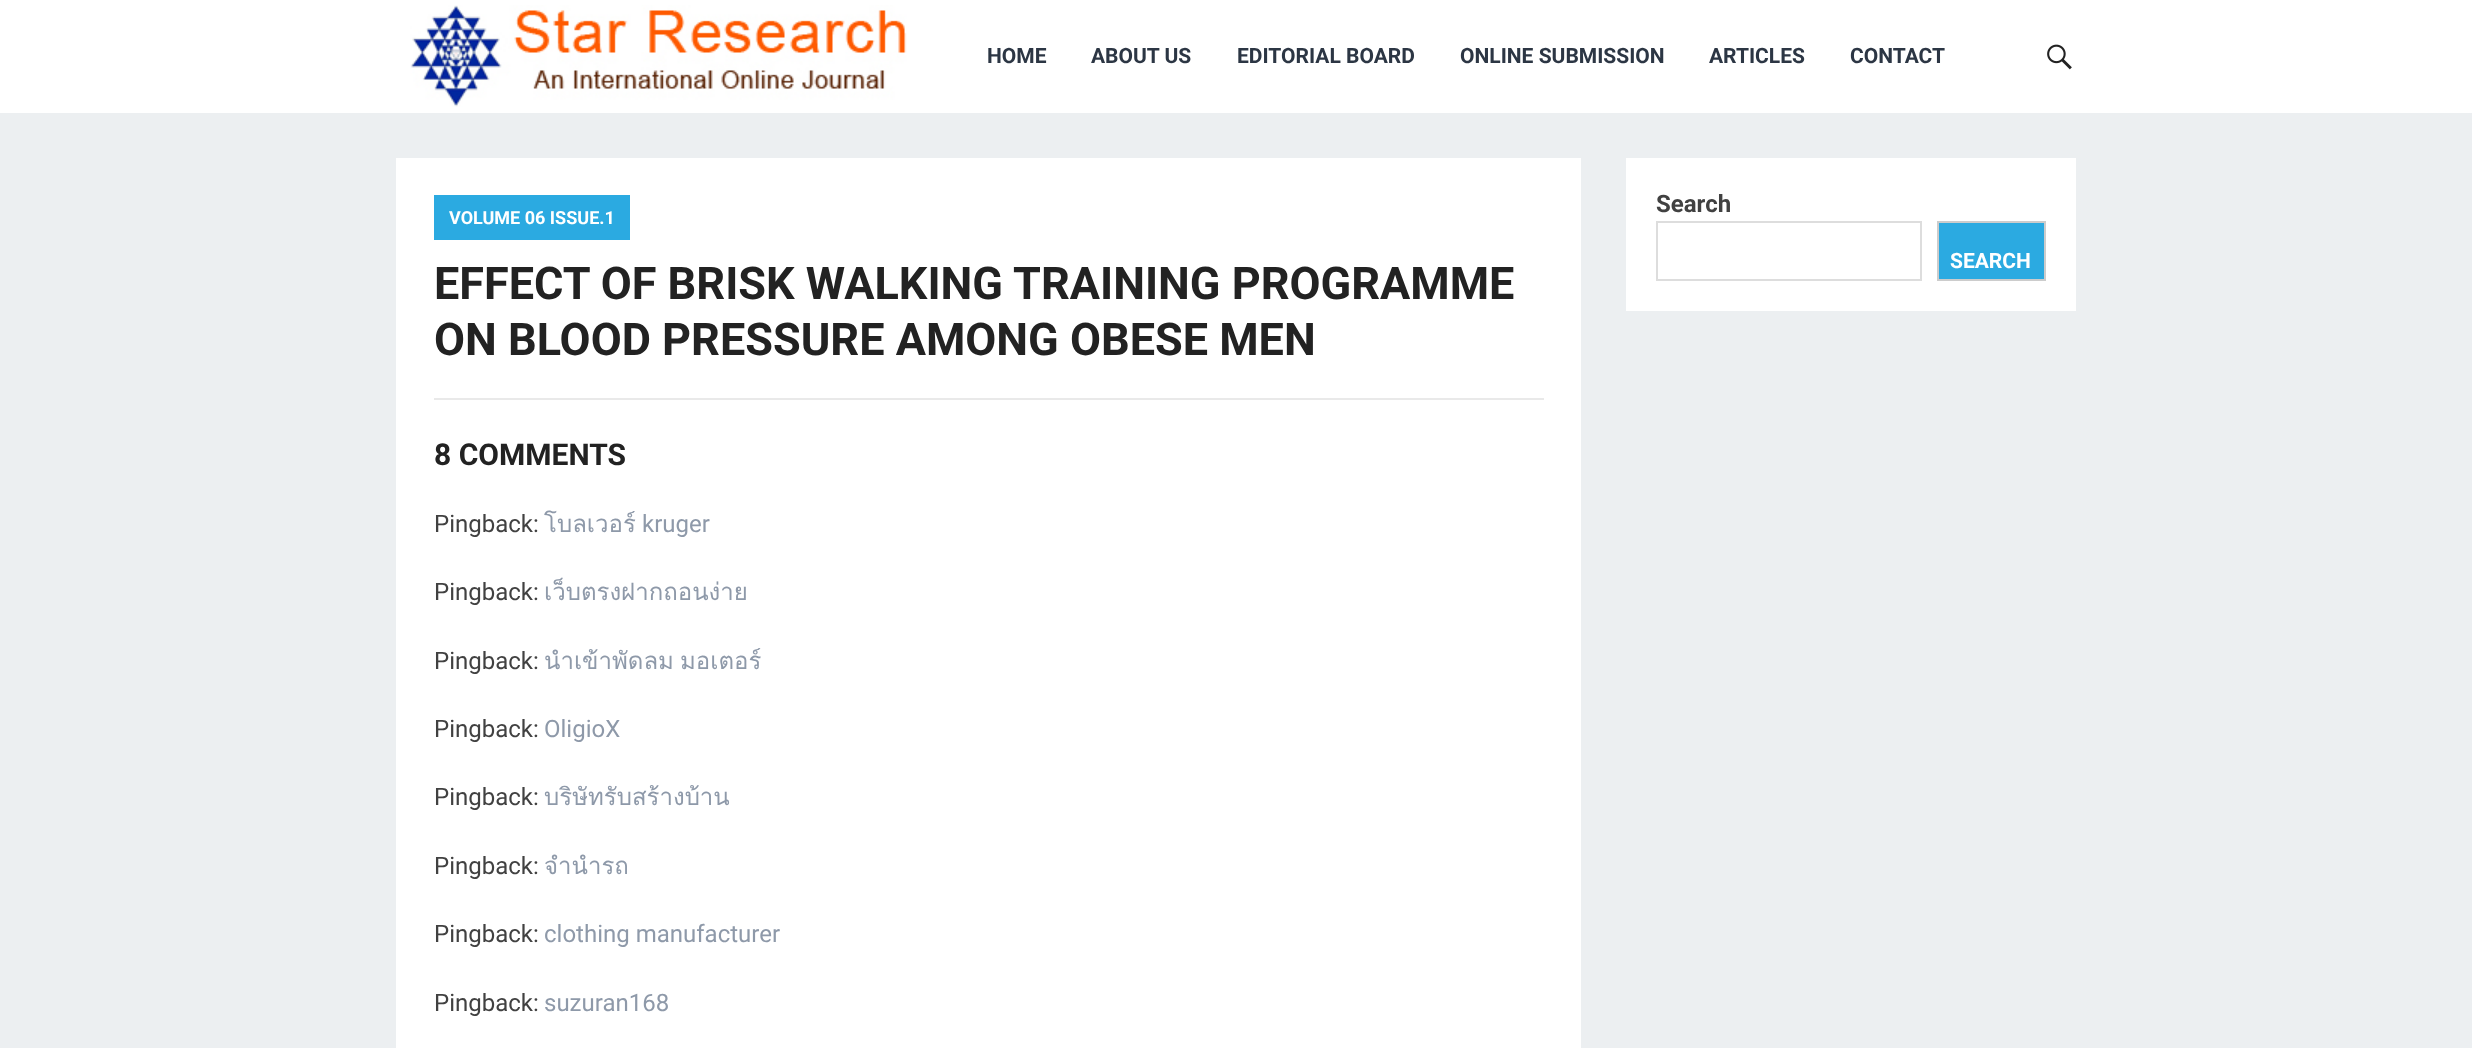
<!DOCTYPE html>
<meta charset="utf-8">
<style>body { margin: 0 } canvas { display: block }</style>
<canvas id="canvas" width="2472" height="1048"></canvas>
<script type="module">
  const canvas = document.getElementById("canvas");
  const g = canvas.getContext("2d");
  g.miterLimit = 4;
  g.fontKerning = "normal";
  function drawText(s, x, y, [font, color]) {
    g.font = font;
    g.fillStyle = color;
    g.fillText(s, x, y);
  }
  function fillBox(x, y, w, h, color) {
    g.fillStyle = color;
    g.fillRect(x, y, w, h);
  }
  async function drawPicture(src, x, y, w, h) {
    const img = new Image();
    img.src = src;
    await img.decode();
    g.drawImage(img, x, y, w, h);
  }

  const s1 = ["bold 21px Roboto", "#2C3644"];
  const s2 = ["bold 18px Roboto", "#FFFFFF"];
  const s3 = ["bold 45px Roboto", "#222222"];
  const s4 = ["bold 30px Roboto", "#222222"];
  const s5 = ["24px Roboto", "#414141"];
  const s6 = ["24px Loma", "#8E99A9"];
  const s7 = ["24px Roboto", "#8E99A9"];
  const s8 = ["bold 24px Roboto", "#414141"];
  const s9 = ["bold 21px Roboto", "#FFFFFF"];

  fillBox(0, 0, 2472, 1048, "#ECEFF1");
  fillBox(0, 0, 2472, 113, "#FFFFFF");
  await drawPicture("pic1.png", 410, 5, 497, 102);
  drawText("HOME", 987, 63, s1);
  drawText("ABOUT US", 1091, 63, s1);
  drawText("EDITORIAL BOARD", 1237, 63, s1);
  drawText("ONLINE SUBMISSION", 1460, 63, s1);
  drawText("ARTICLES", 1709, 63, s1);
  drawText("CONTACT", 1850, 63, s1);
  await drawPicture("pic2.png", 2047, 44, 25, 26);
  fillBox(396, 158, 1185, 890, "#FFFFFF");
  fillBox(434, 195, 196, 45, "#2BAAE1");
  drawText("VOLUME 06 ISSUE.1", 449, 224, s2);
  drawText("EFFECT OF BRISK WALKING TRAINING PROGRAMME", 434, 299, s3);
  drawText("ON BLOOD PRESSURE AMONG OBESE MEN", 434, 355, s3);
  fillBox(434, 398, 1110, 2, "#E9E9E9");
  drawText("8 COMMENTS", 434, 465, s4);
  drawText("Pingback:", 434, 532, s5);
  drawText("โบลเวอร์", 544, 532, s6);
  drawText("kruger", 642, 532, s7);
  drawText("Pingback:", 434, 600, s5);
  drawText("เว็บตรงฝากถอนง่าย", 544, 600, s6);
  drawText("Pingback:", 434, 669, s5);
  g.wordSpacing = "-2px";
  drawText("นำเข้าพัดลม มอเตอร์", 544, 669, s6);
  g.wordSpacing = "0px";
  drawText("Pingback:", 434, 737, s5);
  drawText("OligioX", 544, 737, s7);
  drawText("Pingback:", 434, 805, s5);
  drawText("บริษัทรับสร้างบ้าน", 544, 805, s6);
  drawText("Pingback:", 434, 874, s5);
  drawText("จำนำรถ", 544, 874, s6);
  drawText("Pingback:", 434, 942, s5);
  drawText("clothing manufacturer", 544, 942, s7);
  drawText("Pingback:", 434, 1011, s5);
  drawText("suzuran168", 544, 1011, s7);
  fillBox(1626, 158, 450, 153, "#FFFFFF");
  drawText("Search", 1656, 212, s8);
  g.strokeStyle = "#DDDDDD";
  g.lineWidth = 2;
  g.strokeRect(1657, 222, 264, 58);
  g.fillStyle = "#2BAAE1";
  g.beginPath();
  g.rect(1938, 222, 107, 58);
  g.fill();
  g.strokeStyle = "#CCCCCC";
  g.stroke();
  drawText("SEARCH", 1950, 268, s9);
</script>
